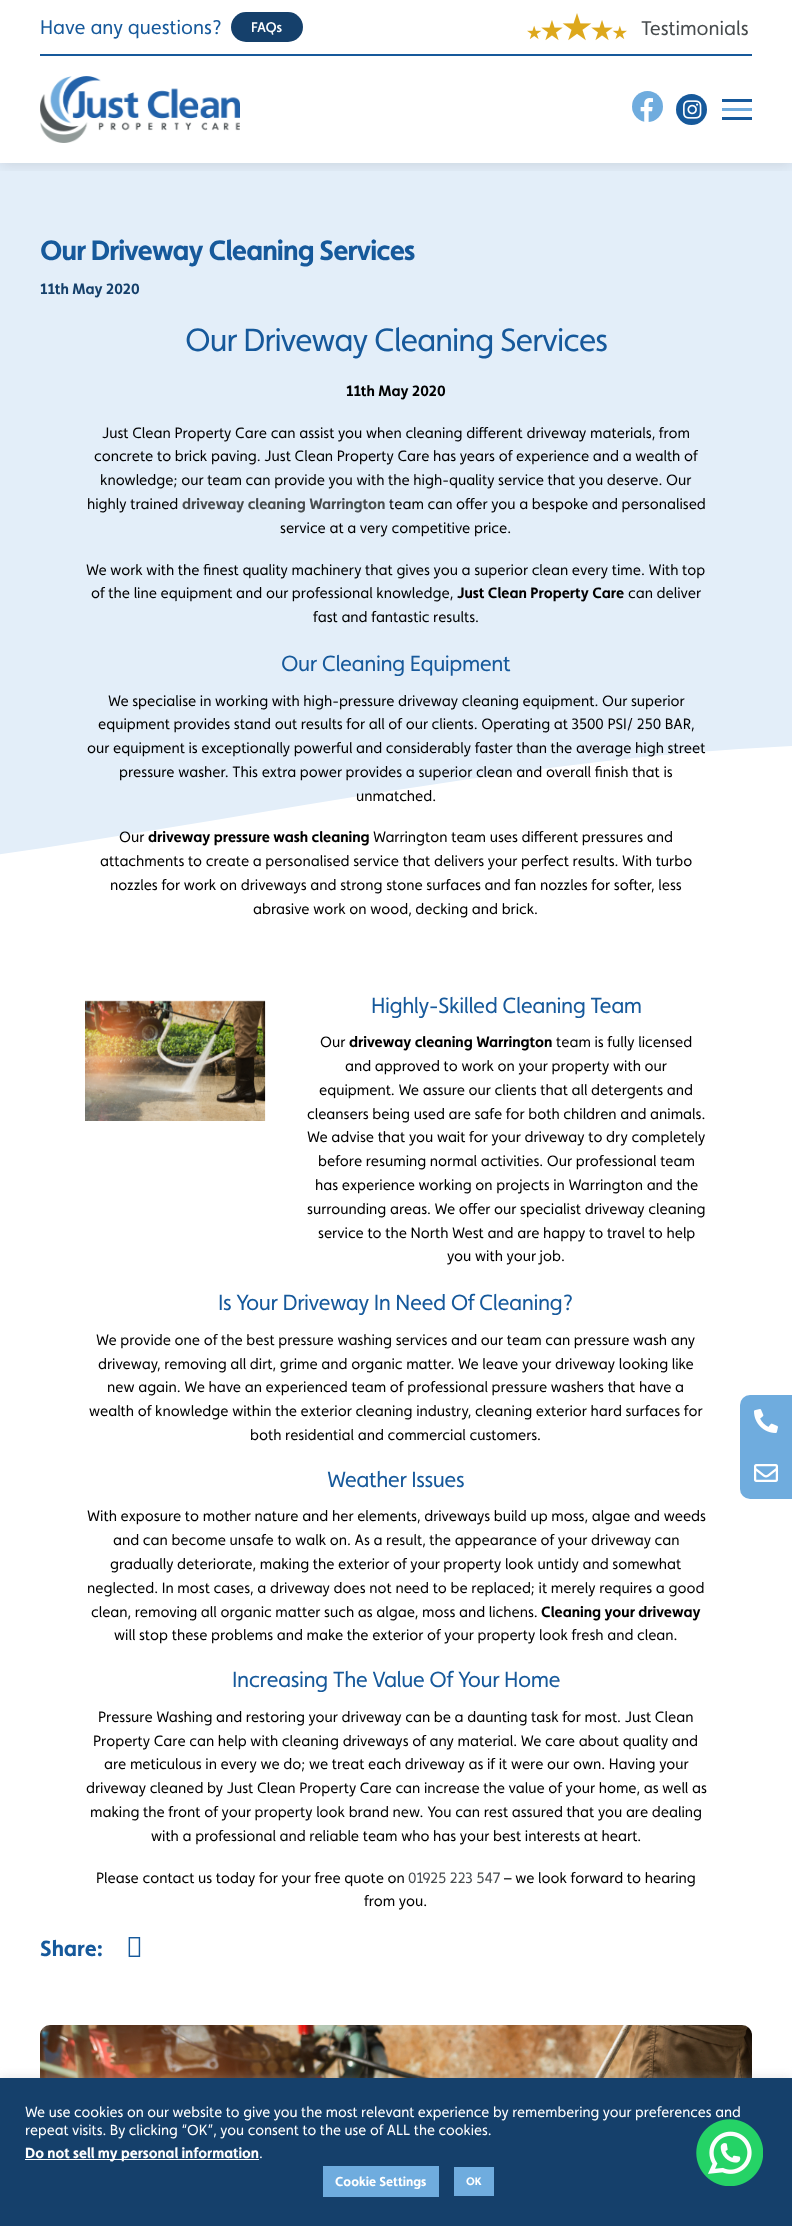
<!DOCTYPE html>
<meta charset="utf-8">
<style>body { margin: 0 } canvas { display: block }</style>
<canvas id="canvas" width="792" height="2226"></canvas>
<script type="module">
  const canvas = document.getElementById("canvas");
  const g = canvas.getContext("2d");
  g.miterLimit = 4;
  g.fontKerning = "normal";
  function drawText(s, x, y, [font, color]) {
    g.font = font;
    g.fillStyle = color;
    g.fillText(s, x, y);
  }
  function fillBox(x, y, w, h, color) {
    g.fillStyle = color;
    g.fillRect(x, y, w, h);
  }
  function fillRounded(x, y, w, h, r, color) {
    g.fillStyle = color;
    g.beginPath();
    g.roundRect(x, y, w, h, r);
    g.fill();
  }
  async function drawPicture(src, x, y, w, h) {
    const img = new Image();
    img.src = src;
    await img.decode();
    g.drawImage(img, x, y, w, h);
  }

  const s1 = ["20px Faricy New", "#16599B"];
  const s2 = ["500 14px Faricy New", "#FFFFFF"];
  const s3 = ["20px Faricy New", "#474C4E"];
  const s4 = ["bold 28px Faricy New", "#16599B"];
  const s5 = ["bold 15px Faricy New", "#15406B"];
  const s6 = ["32.25px Faricy New", "#16599B"];
  const s7 = ["bold 15px Faricy New", "#000000"];
  const s8 = ["15px Faricy New", "#000000"];
  const s9 = ["bold 15px Faricy New", "#474C4E"];
  const s10 = ["22px Faricy New", "#16599B"];
  const s11 = ["15px Faricy New", "#474C4E"];
  const s12 = ["bold 22px Faricy New", "#16599B"];
  const s13 = ["14.65px Faricy New", "#FFFFFF"];
  const s14 = ["bold 14.65px Faricy New", "#FFFFFF"];
  const s15 = ["bold 13px Faricy New", "#FFFFFF"];
  const s16 = ["bold 11px Faricy New", "#FFFFFF"];

  fillBox(0, 0, 792, 2226, "#FFFFFF");
  g.fillStyle = "#E3EEF9";
  g.beginPath();
  g.moveTo(-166, 875);
  g.bezierCurveTo(119, 846, 401, 778, 686, 753);
  g.bezierCurveTo(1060, 721, 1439, 764, 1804, 880);
  g.lineTo(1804, 163);
  g.lineTo(-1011, 163);
  g.lineTo(-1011, 762);
  g.bezierCurveTo(-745, 891, -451, 903, -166, 875);
  g.fill();
  g.save();
  g.beginPath();
  g.rect(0, 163, 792, 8);
  g.clip();
  g.fillStyle = "rgba(0, 0, 0, 0.12)";
  g.filter = "blur(7.5px)";
  g.beginPath();
  g.rect(0, 1, 792, 163);
  g.fill();
  g.filter = "none";
  g.restore();
  fillBox(40, 54, 712, 2, "#16599B");
  drawText("Have any questions?", 40, 34, s1);
  fillRounded(231, 12, 72, 30, 15, "#15406B");
  drawText("FAQs", 251, 32, s2);
  await drawPicture("pic1.png", 527, 13, 100, 28);
  drawText("Testimonials", 641, 35, s3);
  await drawPicture("pic2.png", 40, 76, 200, 67);
  g.fillStyle = "#6FACDE";
  g.beginPath();
  g.arc(647.5, 106.5, 15.5, 0, Math.PI * 2);
  g.fill();
  await drawPicture("pic3.png", 640, 98, 13, 24);
  g.fillStyle = "#16599B";
  g.beginPath();
  g.arc(691.5, 109.5, 15.5, 0, Math.PI * 2);
  g.fill();
  await drawPicture("pic4.png", 683, 100, 19, 19);
  fillBox(722, 99, 30, 3, "#16599B");
  fillBox(722, 108, 30, 3, "#6FACDE");
  fillBox(722, 117, 30, 3, "#16599B");
  g.letterSpacing = "-0.85px";
  drawText("Our Driveway Cleaning Services", 40, 260, s4);
  g.letterSpacing = "0px";
  drawText("11th May 2020", 40, 294, s5);
  g.letterSpacing = "-1px";
  drawText("Our Driveway Cleaning Services", 185, 351, s6);
  g.letterSpacing = "0px";
  drawText("11th May 2020", 346, 396, s7);
  drawText("Just Clean Property Care can assist you when cleaning different driveway materials, from", 102, 438, s8);
  drawText("concrete to brick paving. Just Clean Property Care has years of experience and a wealth of", 94, 461, s8);
  drawText("knowledge; our team can provide you with the high-quality service that you deserve. Our", 100, 485, s8);
  drawText("highly trained", 87, 509, s8);
  drawText("driveway cleaning Warrington", 182, 509, s9);
  drawText("team can offer you a bespoke and personalised", 389, 509, s8);
  drawText("service at a very competitive price.", 280, 533, s8);
  drawText("We work with the finest quality machinery that gives you a superior clean every time. With top", 86, 575, s8);
  drawText("of the line equipment and our professional knowledge,", 91, 598, s8);
  drawText("Just Clean Property Care", 457, 598, s7);
  drawText("can deliver", 628, 598, s8);
  drawText("fast and fantastic results.", 313, 622, s8);
  g.letterSpacing = "-0.45px";
  drawText("Our Cleaning Equipment", 281, 671, s10);
  g.letterSpacing = "0px";
  drawText("We specialise in working with high-pressure driveway cleaning equipment. Our superior", 108, 706, s8);
  drawText("equipment provides stand out results for all of our clients. Operating at 3500 PSI/ 250 BAR,", 98, 729, s8);
  drawText("our equipment is exceptionally powerful and considerably faster than the average high street", 87, 753, s8);
  drawText("pressure washer. This extra power provides a superior clean and overall finish that is", 119, 777, s8);
  drawText("unmatched.", 356, 801, s8);
  drawText("Our", 119, 842, s8);
  drawText("driveway pressure wash cleaning", 148, 842, s7);
  drawText("Warrington team uses different pressures and", 373, 842, s8);
  drawText("attachments to create a personalised service that delivers your perfect results. With turbo", 100, 866, s8);
  drawText("nozzles for work on driveways and strong stone surfaces and fan nozzles for softer, less", 110, 890, s8);
  drawText("abrasive work on wood, decking and brick.", 253, 914, s8);
  await drawPicture("pic5.png", 85, 1000, 181, 121);
  g.letterSpacing = "-0.45px";
  drawText("Highly-Skilled Cleaning Team", 371, 1013, s10);
  g.letterSpacing = "0px";
  drawText("Our", 320, 1047, s8);
  drawText("driveway cleaning Warrington", 349, 1047, s7);
  drawText("team is fully licensed", 556, 1047, s8);
  drawText("and approved to work on your property with our", 345, 1071, s8);
  drawText("equipment. We assure our clients that all detergents and", 319, 1095, s8);
  drawText("cleansers being used are safe for both children and animals.", 307, 1119, s8);
  drawText("We advise that you wait for your driveway to dry completely", 307, 1142, s8);
  drawText("before resuming normal activities. Our professional team", 318, 1166, s8);
  drawText("has experience working on projects in Warrington and the", 315, 1190, s8);
  drawText("surrounding areas. We offer our specialist driveway cleaning", 307, 1214, s8);
  drawText("service to the North West and are happy to travel to help", 318, 1238, s8);
  drawText("you with your job.", 447, 1261, s8);
  g.letterSpacing = "-0.45px";
  drawText("Is Your Driveway In Need Of Cleaning?", 218, 1310, s10);
  g.letterSpacing = "0px";
  drawText("We provide one of the best pressure washing services and our team can pressure wash any", 96, 1345, s8);
  drawText("driveway, removing all dirt, grime and organic matter. We leave your driveway looking like", 98, 1369, s8);
  drawText("new again. We have an experienced team of professional pressure washers that have a", 107, 1392, s8);
  drawText("wealth of knowledge within the exterior cleaning industry, cleaning exterior hard surfaces for", 89, 1416, s8);
  drawText("both residential and commercial customers.", 250, 1440, s8);
  g.letterSpacing = "-0.45px";
  drawText("Weather Issues", 327, 1487, s10);
  g.letterSpacing = "0px";
  drawText("With exposure to mother nature and her elements, driveways build up moss, algae and weeds", 87, 1521, s8);
  drawText("and can become unsafe to walk on. As a result, the appearance of your driveway can", 113, 1545, s8);
  drawText("gradually deteriorate, making the exterior of your property look untidy and somewhat", 110, 1569, s8);
  drawText("neglected. In most cases, a driveway does not need to be replaced; it merely requires a good", 87, 1593, s8);
  drawText("clean, removing all organic matter such as algae, moss and lichens.", 91, 1617, s8);
  drawText("Cleaning your driveway", 541, 1617, s7);
  drawText("will stop these problems and make the exterior of your property look fresh and clean.", 114, 1640, s8);
  g.letterSpacing = "-0.45px";
  drawText("Increasing The Value Of Your Home", 232, 1687, s10);
  g.letterSpacing = "0px";
  drawText("Pressure Washing and restoring your driveway can be a daunting task for most. Just Clean", 98, 1722, s8);
  drawText("Property Care can help with cleaning driveways of any material. We care about quality and", 93, 1746, s8);
  drawText("are meticulous in every we do; we treat each driveway as if it were our own. Having your", 104, 1769, s8);
  drawText("driveway cleaned by Just Clean Property Care can increase the value of your home, as well as", 86, 1793, s8);
  drawText("making the front of your property look brand new. You can rest assured that you are dealing", 90, 1817, s8);
  drawText("with a professional and reliable team who has your best interests at heart.", 151, 1841, s8);
  drawText("Please contact us today for your free quote on", 96, 1883, s8);
  drawText("01925 223 547", 408, 1883, s11);
  drawText("– we look forward to hearing", 504, 1883, s8);
  drawText("from you.", 364, 1906, s8);
  drawText("Share:", 40, 1956, s12);
  await drawPicture("pic6.png", 128, 1937, 13, 20);
  await drawPicture("pic7.png", 40, 2025, 712, 53);
  g.fillStyle = "rgba(172, 171, 171, 0.3)";
  g.filter = "blur(5px)";
  g.beginPath();
  g.rect(0, 2077, 792, 148);
  g.fill();
  g.filter = "none";
  fillBox(0, 2078, 792, 148, "#15406B");
  drawText("We use cookies on our website to give you the most relevant experience by remembering your preferences and", 25, 2117, s13);
  drawText("repeat visits. By clicking “OK”, you consent to the use of ALL the cookies.", 25, 2135, s13);
  fillBox(25, 2159, 234, 1, "#FFFFFF");
  drawText("Do not sell my personal information", 25, 2158, s14);
  drawText(".", 259, 2158, s13);
  fillBox(323, 2166, 116, 31, "#6FACDE");
  drawText("Cookie Settings", 335, 2186, s15);
  fillBox(454, 2167, 40, 29, "#6FACDE");
  drawText("OK", 466, 2185, s16);
  g.fillStyle = "#6FACDE";
  g.beginPath();
  g.roundRect(740, 1395, 52, 104, [10, 0, 0, 10]);
  g.fill();
  await drawPicture("pic8.png", 754, 1409, 24, 24);
  await drawPicture("pic9.png", 754, 1464, 24, 18);
  await drawPicture("pic10.png", 696, 2119, 67, 67);
</script>
